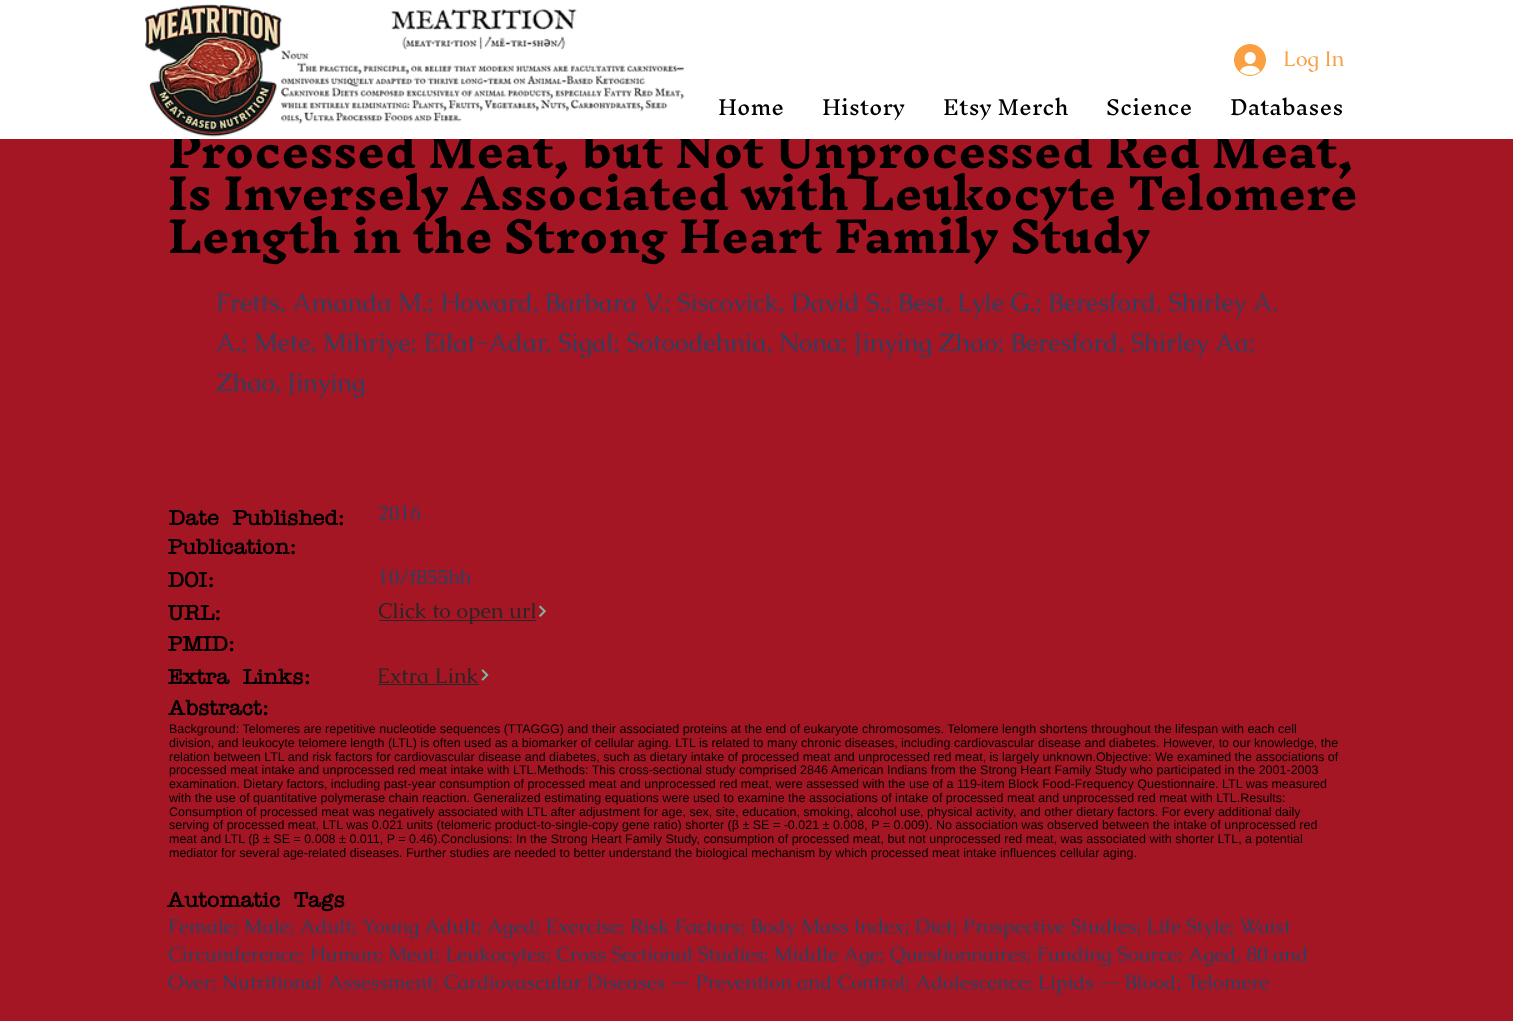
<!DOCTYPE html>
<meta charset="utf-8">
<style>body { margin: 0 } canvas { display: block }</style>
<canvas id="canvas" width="1513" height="1021"></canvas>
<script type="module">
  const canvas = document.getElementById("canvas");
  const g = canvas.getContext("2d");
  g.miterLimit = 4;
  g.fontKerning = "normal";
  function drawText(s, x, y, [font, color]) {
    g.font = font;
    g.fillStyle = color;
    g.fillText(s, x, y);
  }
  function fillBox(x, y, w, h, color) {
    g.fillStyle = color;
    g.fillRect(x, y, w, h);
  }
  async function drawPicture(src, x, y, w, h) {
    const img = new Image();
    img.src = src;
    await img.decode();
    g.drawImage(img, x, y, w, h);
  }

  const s1 = ["bold 42.5px Inknut Antiqua", "#000000"];
  const s2 = ["21.25px Caudex", "#FA9F42"];
  const s3 = ["20px Inknut Antiqua", "#000000"];
  const s4 = ["25px Caudex", "#2B4162"];
  const s5 = ["bold 22.5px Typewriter", "#000000"];
  const s6 = ["20px Caudex", "#2B4162"];
  const s7 = ["21.25px Caudex", "#282626"];
  const s8 = ["12.5px Liberation Sans", "#000000"];

  fillBox(0, 0, 1513, 1021, "#A41623");
  drawText("Processed Meat, but Not Unprocessed Red Meat,", 168, 168, s1);
  fillBox(0, 0, 1513, 139, "#FFFFFF");
  await drawPicture("pic1.png", 145, 4, 137, 133);
  await drawPicture("pic2.png", 281, 8, 403, 116);
  await drawPicture("pic3.png", 1234, 44, 32, 32);
  drawText("Log In", 1283, 66, s2);
  drawText("Home", 718, 115, s3);
  drawText("History", 822, 115, s3);
  drawText("Etsy Merch", 943, 115, s3);
  drawText("Science", 1106, 115, s3);
  drawText("Databases", 1230, 115, s3);
  drawText("Is Inversely Associated with Leukocyte Telomere", 168, 210, s1);
  drawText("Length in the Strong Heart Family Study", 168, 253, s1);
  drawText("Fretts, Amanda M.; Howard, Barbara V.; Siscovick, David S.; Best, Lyle G.; Beresford, Shirley A.", 216, 311, s4);
  drawText("A.; Mete, Mihriye; Eilat-Adar, Sigal; Sotoodehnia, Nona; Jinying Zhao; Beresford, Shirley Aa;", 216, 351, s4);
  drawText("Zhao, Jinying", 216, 391, s4);
  drawText("Date Published:", 169, 525, s5);
  drawText("2016", 378, 520, s6);
  drawText("Publication:", 168, 554, s5);
  drawText("DOI:", 168, 587, s5);
  drawText("10/f855bh", 378, 584, s6);
  drawText("URL:", 168, 620, s5);
  fillBox(379, 620, 157, 1, "#282626");
  g.save();
  g.beginPath();
  g.rect(379, 599, 157, 25);
  g.clip();
  drawText("Click to open url", 378, 618, s7);
  g.restore();
  await drawPicture("pic4.png", 539, 605, 7, 12);
  drawText("PMID:", 168, 651, s5);
  drawText("Extra Links:", 168, 684, s5);
  drawText("Extra Link", 377, 683, s7);
  fillBox(378, 684, 101, 1, "#282626");
  await drawPicture("pic5.png", 481, 669, 8, 12);
  drawText("Abstract:", 168, 715, s5);
  drawText("Background: Telomeres are repetitive nucleotide sequences (TTAGGG) and their associated proteins at the end of eukaryote chromosomes. Telomere length shortens throughout the lifespan with each cell", 169, 733, s8);
  drawText("division, and leukocyte telomere length (LTL) is often used as a biomarker of cellular aging. LTL is related to many chronic diseases, including cardiovascular disease and diabetes. However, to our knowledge, the", 169, 747, s8);
  drawText("relation between LTL and risk factors for cardiovascular disease and diabetes, such as dietary intake of processed meat and unprocessed red meat, is largely unknown.Objective: We examined the associations of", 169, 761, s8);
  drawText("processed meat intake and unprocessed red meat intake with LTL.Methods: This cross-sectional study comprised 2846 American Indians from the Strong Heart Family Study who participated in the 2001-2003", 169, 774, s8);
  drawText("examination. Dietary factors, including past-year consumption of processed meat and unprocessed red meat, were assessed with the use of a 119-item Block Food-Frequency Questionnaire. LTL was measured", 169, 788, s8);
  drawText("with the use of quantitative polymerase chain reaction. Generalized estimating equations were used to examine the associations of intake of processed meat and unprocessed red meat with LTL.Results:", 169, 802, s8);
  drawText("Consumption of processed meat was negatively associated with LTL after adjustment for age, sex, site, education, smoking, alcohol use, physical activity, and other dietary factors. For every additional daily", 169, 816, s8);
  drawText("serving of processed meat, LTL was 0.021 units (telomeric product-to-single-copy gene ratio) shorter (β ± SE = -0.021 ± 0.008, P = 0.009). No association was observed between the intake of unprocessed red", 169, 829, s8);
  drawText("meat and LTL (β ± SE = 0.008 ± 0.011, P = 0.46).Conclusions: In the Strong Heart Family Study, consumption of processed meat, but not unprocessed red meat, was associated with shorter LTL, a potential", 169, 843, s8);
  drawText("mediator for several age-related diseases. Further studies are needed to better understand the biological mechanism by which processed meat intake influences cellular aging.", 169, 857, s8);
  drawText("Automatic Tags", 167, 907, s5);
  drawText("Female; Male; Adult; Young Adult; Aged; Exercise; Risk Factors; Body Mass Index; Diet; Prospective Studies; Life Style; Waist", 168, 933, s6);
  drawText("Circumference; Human; Meat; Leukocytes; Cross Sectional Studies; Middle Age; Questionnaires; Funding Source; Aged, 80 and", 168, 961, s6);
  drawText("Over; Nutritional Assessment; Cardiovascular Diseases -- Prevention and Control; Adolescence; Lipids -- Blood; Telomere", 168, 989, s6);
</script>
